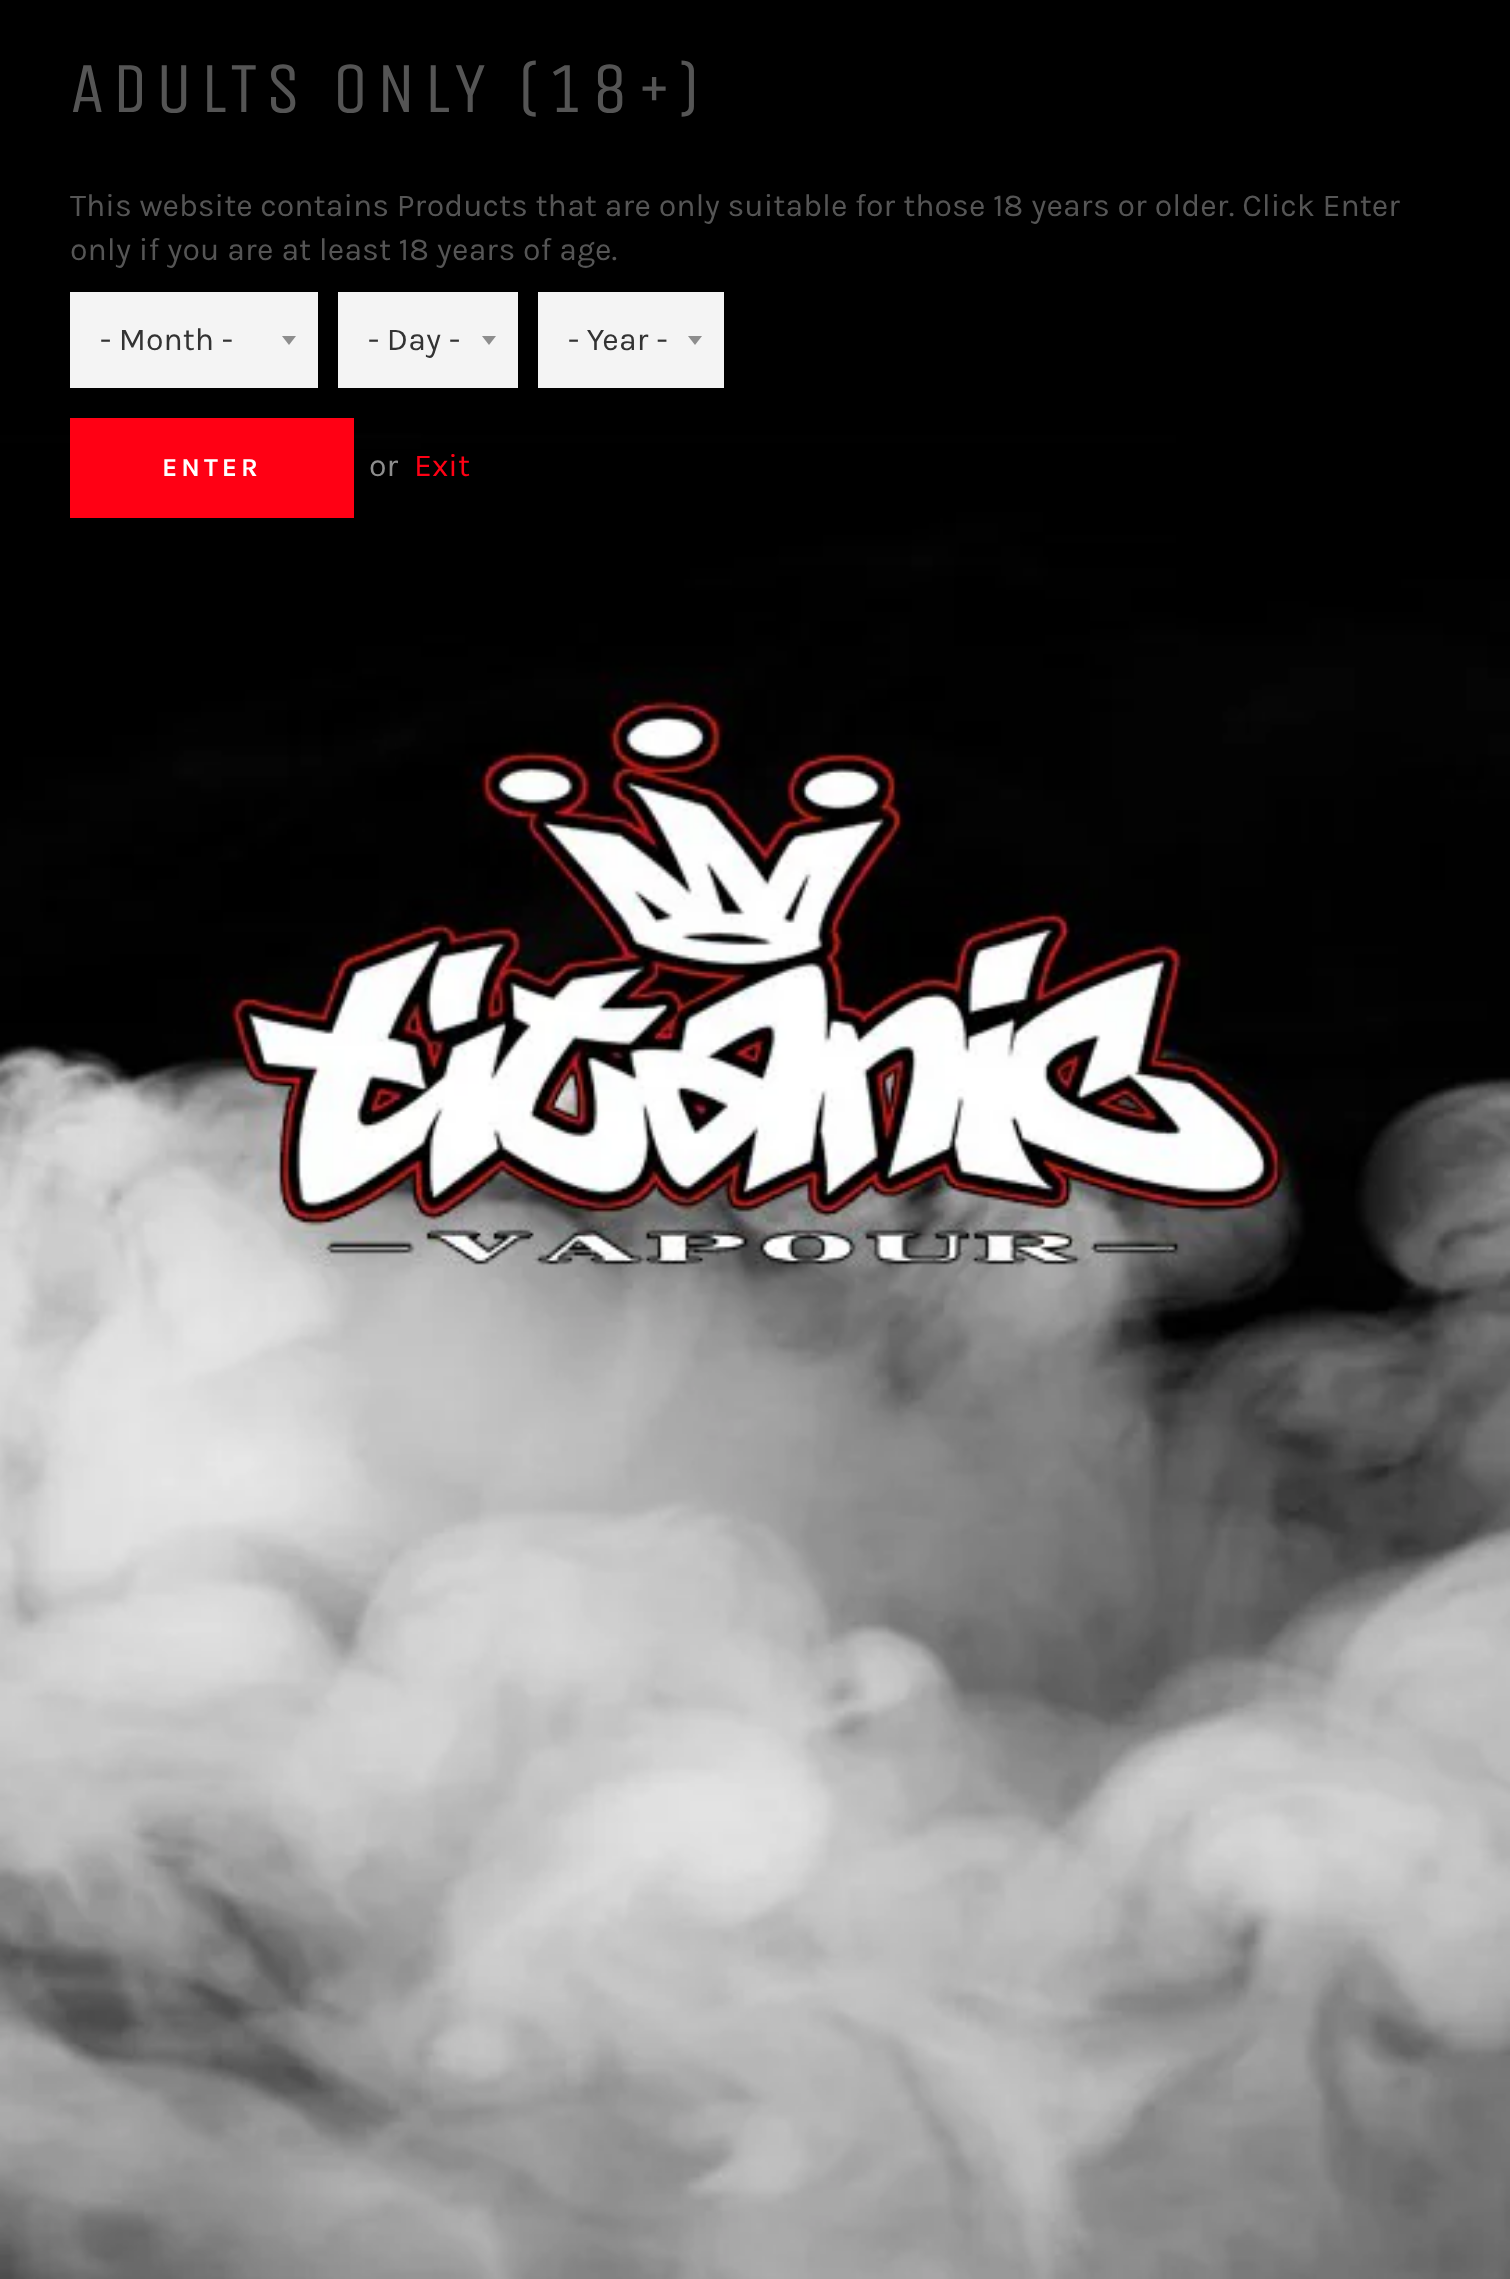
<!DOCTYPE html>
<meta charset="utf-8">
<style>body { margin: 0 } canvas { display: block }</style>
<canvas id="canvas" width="1510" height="2279"></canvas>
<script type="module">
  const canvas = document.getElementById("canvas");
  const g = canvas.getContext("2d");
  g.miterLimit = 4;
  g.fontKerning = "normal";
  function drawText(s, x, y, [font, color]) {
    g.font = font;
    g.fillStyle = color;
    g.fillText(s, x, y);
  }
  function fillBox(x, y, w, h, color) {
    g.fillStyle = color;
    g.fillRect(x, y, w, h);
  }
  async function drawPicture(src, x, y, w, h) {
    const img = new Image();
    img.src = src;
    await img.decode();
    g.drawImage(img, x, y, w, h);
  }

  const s1 = ["72px Unica One", "#555555"];
  const s2 = ["32px Karla", "#555555"];
  const s3 = ["32px Karla", "#333333"];
  const s4 = ["bold 26px Karla", "#FFFFFF"];
  const s5 = ["32px Karla", "#8D8D8D"];
  const s6 = ["32px Karla", "#FF0014"];

  fillBox(0, 0, 1510, 2279, "#FFFFFF");
  await drawPicture("pic1.png", 0, 0, 1510, 2279);
  g.letterSpacing = "7.25px";
  drawText("ADULTS ONLY (18+)", 70, 112, s1);
  g.letterSpacing = "0px";
  drawText("This website contains Products that are only suitable for those 18 years or older. Click Enter", 70, 216, s2);
  drawText("only if you are at least 18 years of age.", 70, 260, s2);
  fillBox(70, 292, 248, 96, "#F4F4F4");
  g.fillStyle = "#8D8D8D";
  g.beginPath();
  g.moveTo(282, 336);
  g.lineTo(289, 345);
  g.lineTo(296, 336);
  g.closePath();
  g.fill();
  drawText("- Month -", 100, 350, s3);
  fillBox(338, 292, 180, 96, "#F4F4F4");
  g.fillStyle = "#8D8D8D";
  g.beginPath();
  g.moveTo(482, 336);
  g.lineTo(489, 345);
  g.lineTo(496, 336);
  g.closePath();
  g.fill();
  drawText("- Day -", 368, 350, s3);
  fillBox(538, 292, 186, 96, "#F4F4F4");
  g.fillStyle = "#8D8D8D";
  g.beginPath();
  g.moveTo(688, 336);
  g.lineTo(695, 345);
  g.lineTo(702, 336);
  g.closePath();
  g.fill();
  drawText("- Year -", 568, 350, s3);
  fillBox(70, 418, 284, 100, "#FF0014");
  g.letterSpacing = "4px";
  drawText("ENTER", 162, 476, s4);
  g.letterSpacing = "0px";
  drawText("or", 369, 476, s5);
  drawText("Exit", 414, 476, s6);
</script>
